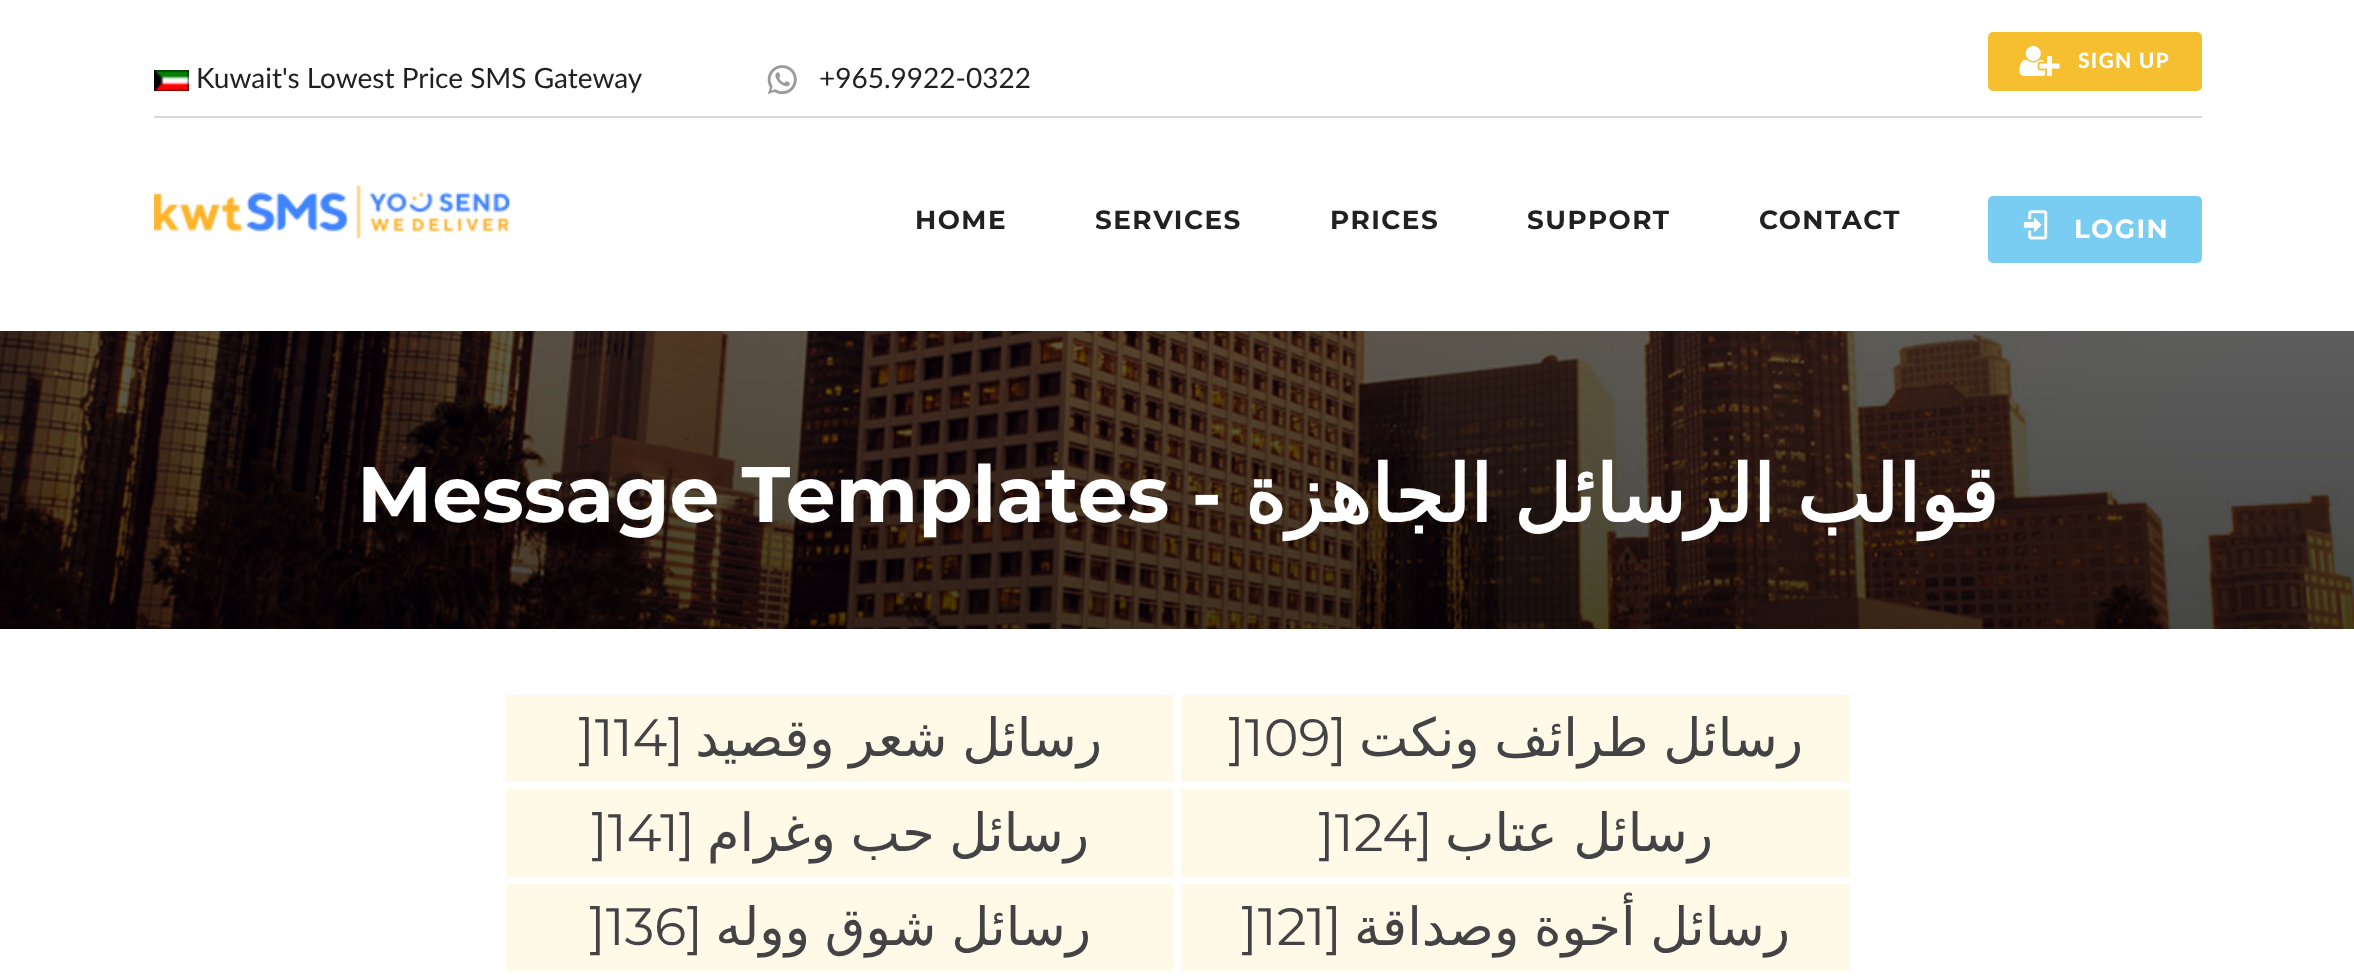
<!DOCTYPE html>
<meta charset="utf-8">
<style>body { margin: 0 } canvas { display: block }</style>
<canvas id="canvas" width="2354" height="976"></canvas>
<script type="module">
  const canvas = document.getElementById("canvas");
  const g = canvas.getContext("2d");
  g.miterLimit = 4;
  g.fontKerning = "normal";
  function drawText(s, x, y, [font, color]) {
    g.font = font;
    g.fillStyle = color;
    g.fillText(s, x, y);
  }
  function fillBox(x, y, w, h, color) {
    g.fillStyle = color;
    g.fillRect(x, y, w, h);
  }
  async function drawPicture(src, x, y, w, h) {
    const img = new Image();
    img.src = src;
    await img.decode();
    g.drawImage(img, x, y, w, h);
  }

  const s1 = ["900 21px Lato", "#FFFFFF"];
  const s2 = ["28px Lato", "#212121"];
  const s3 = ["bold 26.25px Montserrat", "#212121"];
  const s4 = ["bold 26.25px Montserrat", "#FFFFFF"];
  const s5 = ["bold 78.75px Montserrat", "#FFFFFF"];
  const s6 = ["bold 78.75px DejaVu Sans", "#FFFFFF"];
  const s7 = ["52.5px Montserrat", "#434345"];
  const s8 = ["52.5px DejaVu Sans", "#434345"];

  fillBox(0, 0, 2354, 976, "#FFFFFF");
  fillBox(154, 116, 2048, 2, "#D9D9D9");
  g.fillStyle = "#F5BF2F";
  g.beginPath();
  g.roundRect(1989, 33, 212, 57, 4);
  g.fill();
  g.strokeStyle = "#F5BF2F";
  g.lineWidth = 2;
  g.stroke();
  await drawPicture("pic1.png", 2019, 46, 41, 30);
  g.letterSpacing = "1.25px";
  drawText("SIGN UP", 2078, 68, s1);
  await drawPicture("pic2.png", 154, 70, 35, 21);
  g.letterSpacing = "0px";
  drawText("Kuwait's Lowest Price SMS Gateway", 196, 88, s2);
  await drawPicture("pic3.png", 767, 65, 30, 30);
  drawText("+965.9922-0322", 819, 88, s2);
  await drawPicture("pic4.png", 154, 185, 356, 53);
  g.letterSpacing = "1.5px";
  drawText("HOME", 915, 229, s3);
  drawText("SERVICES", 1095, 229, s3);
  drawText("PRICES", 1330, 229, s3);
  drawText("SUPPORT", 1527, 229, s3);
  drawText("CONTACT", 1759, 229, s3);
  g.fillStyle = "#79CCF2";
  g.beginPath();
  g.roundRect(1989, 197, 212, 65, 4);
  g.fill();
  g.strokeStyle = "#79CCF2";
  g.stroke();
  await drawPicture("pic5.png", 2023, 210, 25, 30);
  drawText("LOGIN", 2074, 238, s4);
  await drawPicture("pic6.png", 0, 331, 2354, 298);
  g.letterSpacing = "0px";
  drawText("Message Templates -", 357, 522, s5);
  g.wordSpacing = "-3px";
  g.direction = "rtl";
  drawText("قوالب الرسائل الجاهزة", 1998, 522, s6);
  fillBox(506, 695, 668, 87, "#FFF9E7");
  g.wordSpacing = "0px";
  g.direction = "ltr";
  drawText("]114", 578, 756, s7);
  g.direction = "rtl";
  drawText("[", 684, 756, s7);
  g.wordSpacing = "-2px";
  drawText("رسائل شعر وقصيد", 1102, 756, s8);
  fillBox(1181, 695, 669, 87, "#FFF9E7");
  g.wordSpacing = "0px";
  g.direction = "ltr";
  drawText("]109", 1228, 756, s7);
  g.direction = "rtl";
  drawText("[", 1347, 756, s7);
  g.wordSpacing = "-2px";
  drawText("رسائل طرائف ونكت", 1803, 756, s8);
  fillBox(506, 789, 668, 88, "#FFF9E7");
  g.wordSpacing = "0px";
  g.direction = "ltr";
  drawText("]141", 591, 851, s7);
  g.direction = "rtl";
  drawText("[", 695, 851, s7);
  g.wordSpacing = "-2px";
  drawText("رسائل حب وغرام", 1089, 851, s8);
  fillBox(1181, 789, 669, 88, "#FFF9E7");
  g.wordSpacing = "0px";
  g.direction = "ltr";
  drawText("]124", 1318, 851, s7);
  g.direction = "rtl";
  drawText("[", 1433, 851, s7);
  g.wordSpacing = "-1px";
  drawText("رسائل عتاب", 1713, 851, s8);
  fillBox(506, 884, 668, 87, "#FFF9E7");
  g.wordSpacing = "0px";
  g.direction = "ltr";
  drawText("]136", 589, 945, s7);
  g.direction = "rtl";
  drawText("[", 703, 945, s7);
  g.wordSpacing = "-2px";
  drawText("رسائل شوق ووله", 1091, 945, s8);
  fillBox(1181, 884, 669, 87, "#FFF9E7");
  g.wordSpacing = "0px";
  g.direction = "ltr";
  drawText("]121", 1241, 945, s7);
  g.direction = "rtl";
  drawText("[", 1342, 945, s7);
  g.wordSpacing = "-2px";
  drawText("رسائل أخوة وصداقة", 1790, 945, s8);
</script>
